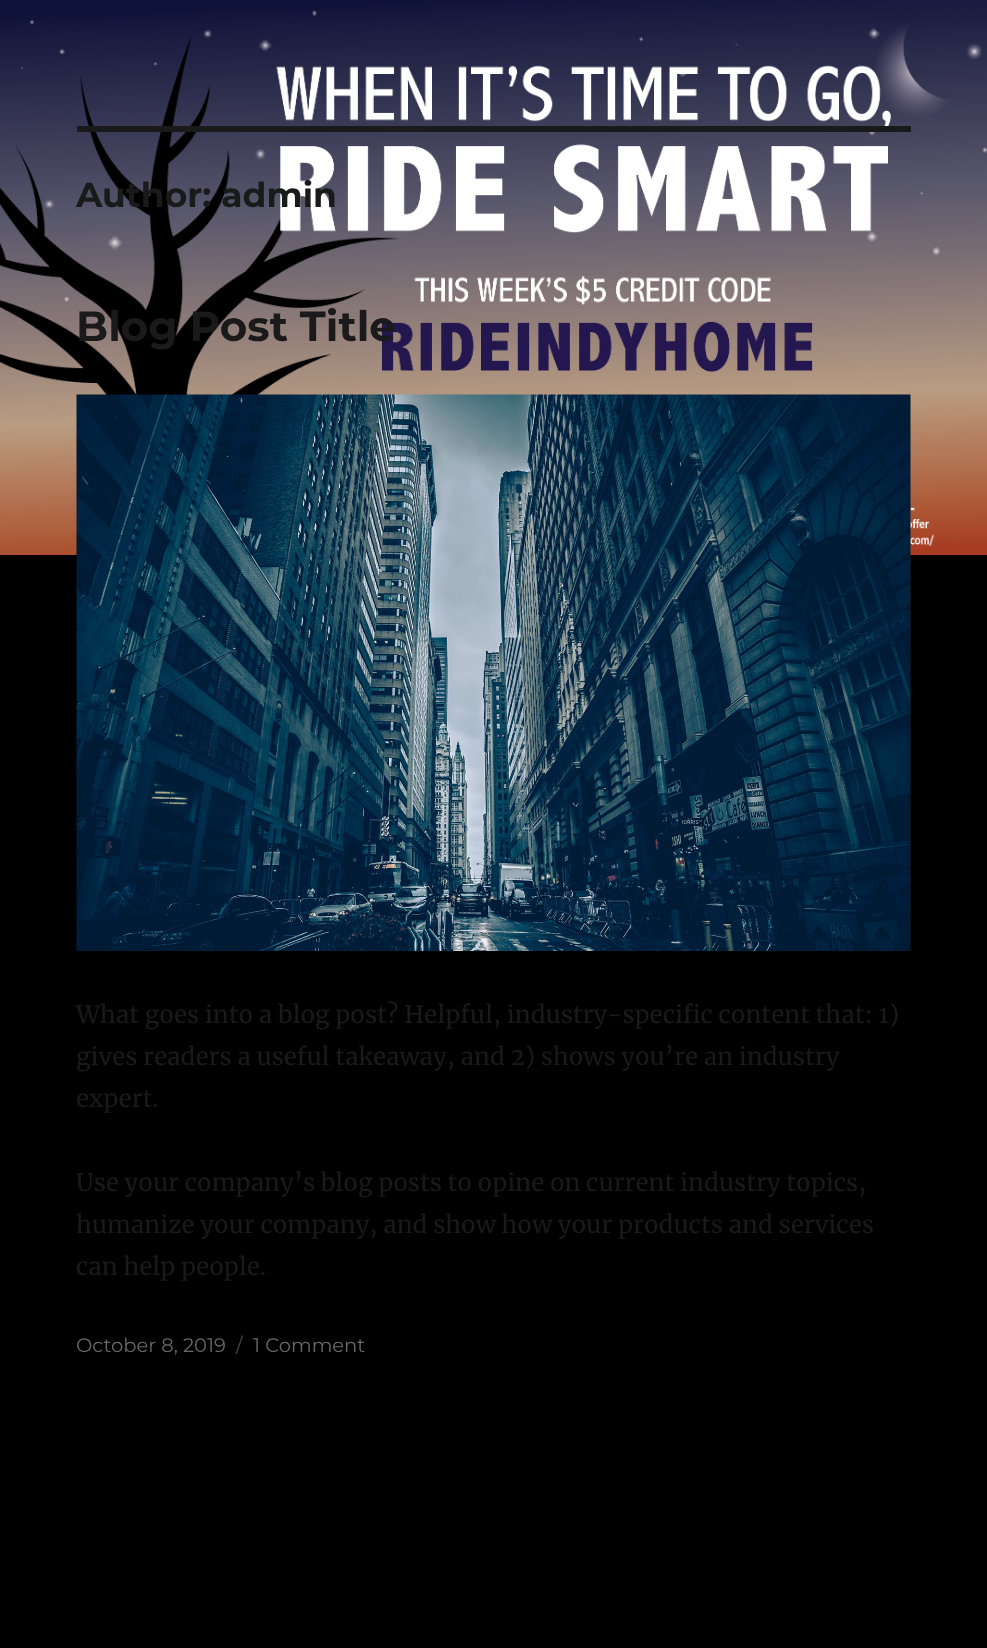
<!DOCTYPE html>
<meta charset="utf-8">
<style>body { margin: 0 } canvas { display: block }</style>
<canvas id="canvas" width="987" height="1648"></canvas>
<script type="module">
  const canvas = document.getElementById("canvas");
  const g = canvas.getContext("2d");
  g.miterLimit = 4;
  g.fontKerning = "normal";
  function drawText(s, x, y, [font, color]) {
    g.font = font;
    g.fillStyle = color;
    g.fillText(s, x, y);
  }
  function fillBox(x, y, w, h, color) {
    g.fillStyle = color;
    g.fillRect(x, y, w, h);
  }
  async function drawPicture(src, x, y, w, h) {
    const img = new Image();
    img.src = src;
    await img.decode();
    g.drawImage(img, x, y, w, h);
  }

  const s1 = ["100 34.5px Montserrat", "#1A1A1A"];
  const s2 = ["100 42px Montserrat", "#1A1A1A"];
  const s3 = ["24px Merriweather", "#1A1A1A"];
  const s4 = ["100 19.5px 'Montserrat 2'", "#686868"];
  const s5 = ["100 19.5px 'Montserrat 2'", "#494949"];

  fillBox(0, 0, 987, 1648, "#000000");
  await drawPicture("pic1.png", 0, 0, 987, 555);
  fillBox(77, 126, 834, 6, "#1A1A1A");
  drawText("Author: admin", 76, 207, s1);
  drawText("Blog Post Title", 76, 341, s2);
  await drawPicture("pic2.png", 76, 394, 835, 557);
  drawText("What goes into a blog post? Helpful, industry-specific content that: 1)", 76, 1023, s3);
  drawText("gives readers a useful takeaway, and 2) shows you’re an industry", 76, 1065, s3);
  drawText("expert.", 76, 1107, s3);
  drawText("Use your company’s blog posts to opine on current industry topics,", 76, 1191, s3);
  drawText("humanize your company, and show how your products and services", 76, 1233, s3);
  drawText("can help people.", 76, 1275, s3);
  drawText("October 8, 2019", 76, 1352, s4);
  drawText("/", 236, 1352, s5);
  drawText("1 Comment", 253, 1352, s4);
</script>
